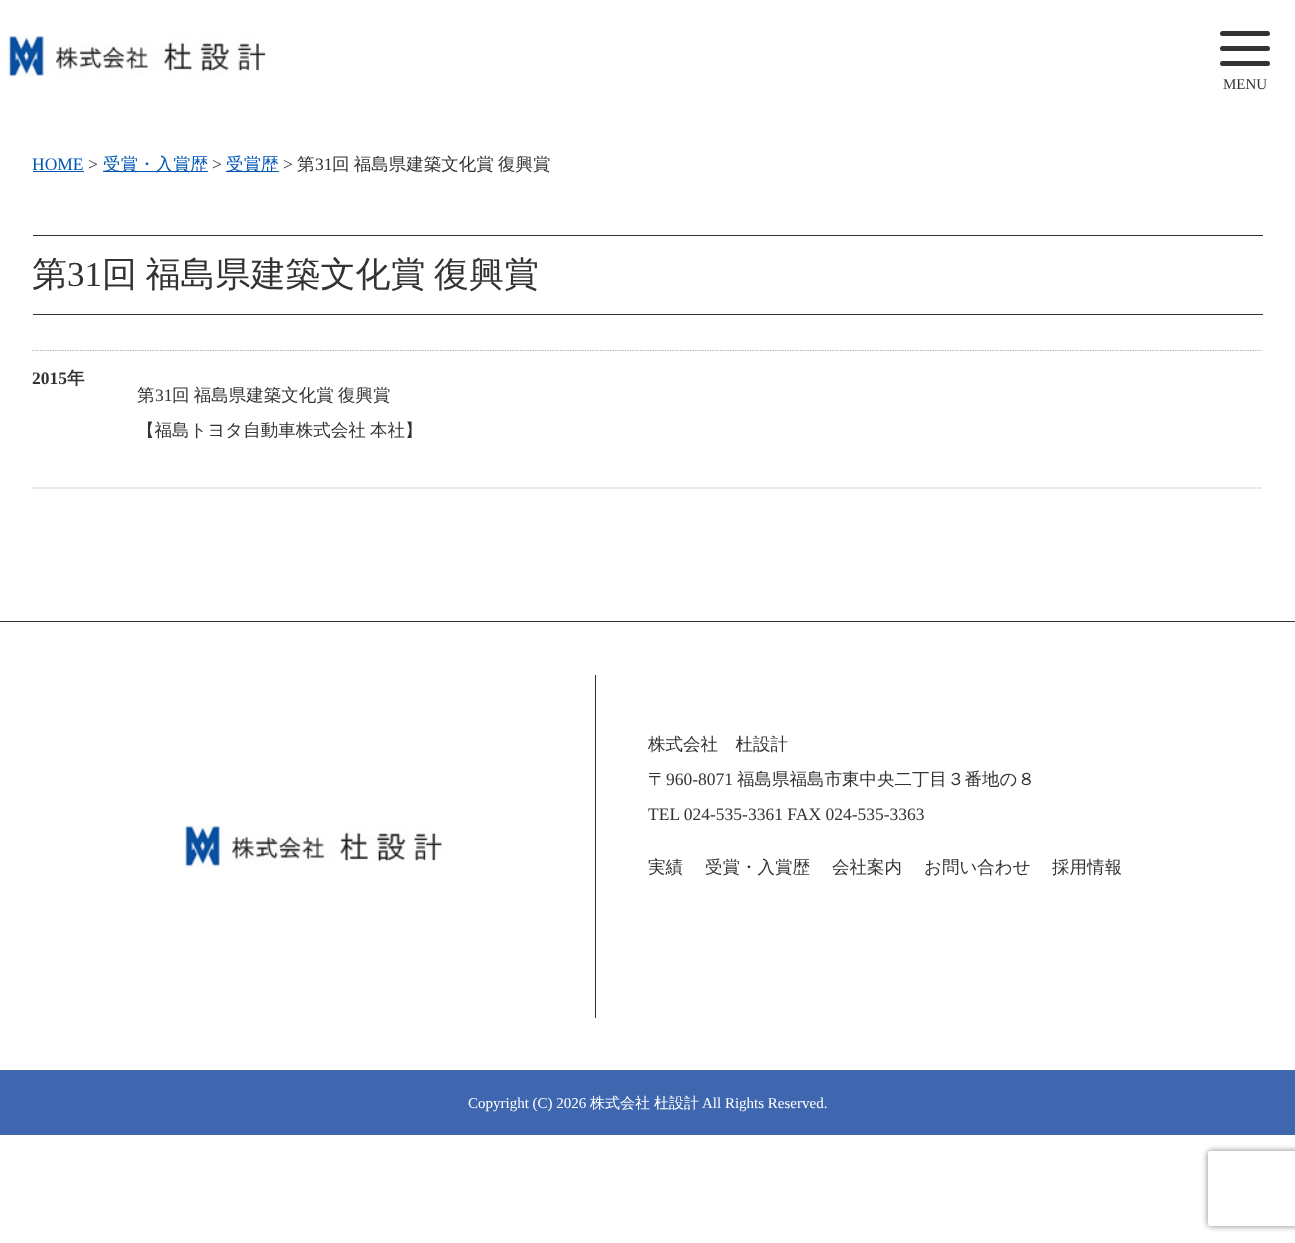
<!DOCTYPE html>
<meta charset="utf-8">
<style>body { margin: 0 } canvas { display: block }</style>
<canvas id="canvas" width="1295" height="1243"></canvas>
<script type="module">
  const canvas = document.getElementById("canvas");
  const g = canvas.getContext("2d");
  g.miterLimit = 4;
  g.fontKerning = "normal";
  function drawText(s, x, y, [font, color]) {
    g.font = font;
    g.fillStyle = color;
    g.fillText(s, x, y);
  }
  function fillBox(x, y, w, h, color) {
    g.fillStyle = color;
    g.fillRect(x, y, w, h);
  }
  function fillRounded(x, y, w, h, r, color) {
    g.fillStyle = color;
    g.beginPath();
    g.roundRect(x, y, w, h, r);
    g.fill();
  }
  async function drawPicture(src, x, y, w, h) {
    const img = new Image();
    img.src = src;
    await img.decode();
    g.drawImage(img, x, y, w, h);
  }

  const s1 = ["15px Liberation Serif", "#333333"];
  const s2 = ["17.5px Liberation Serif", "#0056B5"];
  const s3 = ["17.5px Liberation Serif", "#333333"];
  const s4 = ["500 17.5px WenQuanYi Zen Hei", "#0056B5"];
  const s5 = ["500 17.5px WenQuanYi Zen Hei", "#333333"];
  const s6 = ["500 35px WenQuanYi Zen Hei", "#333333"];
  const s7 = ["35px Liberation Serif", "#333333"];
  const s8 = ["bold 17.5px Liberation Serif", "#333333"];
  const s9 = ["bold 17.5px WenQuanYi Zen Hei", "#333333"];
  const s10 = ["15px Liberation Serif", "#FFFFFF"];
  const s11 = ["500 15px WenQuanYi Zen Hei", "#FFFFFF"];

  fillBox(0, 0, 1295, 1243, "#FFFFFF");
  await drawPicture("pic1.png", 8, 35, 259, 43);
  fillRounded(1220, 31, 50, 5, 2.5, "#333333");
  fillRounded(1220, 46, 50, 5, 2.5, "#333333");
  fillRounded(1220, 61, 50, 5, 2.5, "#333333");
  drawText("MENU", 1223, 89, s1);
  fillBox(0, 621, 1295, 1, "#333333");
  drawText("HOME", 32, 170, s2);
  fillBox(33, 171, 51, 1, "#0056B5");
  drawText(">", 88, 170, s3);
  fillBox(103, 171, 105, 1, "#0056B5");
  drawText("受賞・入賞歴", 103, 170, s4);
  drawText(">", 212, 170, s3);
  fillBox(226, 171, 53, 1, "#0056B5");
  drawText("受賞歴", 226, 170, s4);
  drawText(">", 283, 170, s3);
  drawText("第", 297, 170, s5);
  drawText("31", 315, 170, s3);
  g.wordSpacing = "-1px";
  drawText("回 福島県建築文化賞 復興賞", 332, 170, s5);
  fillBox(33, 235, 1230, 1, "#333333");
  fillBox(33, 314, 1230, 1, "#333333");
  g.wordSpacing = "0px";
  drawText("第", 32, 286, s6);
  drawText("31", 67, 286, s7);
  g.wordSpacing = "-2px";
  drawText("回 福島県建築文化賞 復興賞", 102, 286, s6);
  g.beginPath();
  g.moveTo(32.5, 350.5);
  g.lineTo(1262.5, 350.5);
  g.strokeStyle = "#AAAAAA";
  g.lineWidth = 1.2;
  g.setLineDash([1.25, 1.25]);
  g.stroke();
  g.wordSpacing = "0px";
  drawText("2015", 32, 384, s8);
  drawText("年", 67, 384, s9);
  g.beginPath();
  g.moveTo(32.5, 488);
  g.lineTo(1262.5, 488);
  g.stroke();
  drawText("第", 137, 401, s5);
  drawText("31", 155, 401, s3);
  g.wordSpacing = "-1px";
  drawText("回 福島県建築文化賞 復興賞", 172, 401, s5);
  drawText("【福島トヨタ自動車株式会社 本社】", 137, 436, s5);
  await drawPicture("pic2.png", 185, 825, 258, 43);
  fillBox(595, 675, 1, 343, "#333333");
  g.wordSpacing = "0px";
  drawText("株式会社　杜設計", 648, 750, s5);
  drawText("〒", 648, 785, s5);
  drawText("960-8071", 666, 785, s3);
  drawText("福島県福島市東中央二丁目３番地の８", 737, 785, s5);
  drawText("TEL 024-535-3361 FAX 024-535-3363", 648, 820, s3);
  drawText("実績", 648, 873, s5);
  drawText("受賞・入賞歴", 705, 873, s5);
  drawText("会社案内", 832, 873, s5);
  drawText("お問い合わせ", 924, 873, s5);
  drawText("採用情報", 1052, 873, s5);
  fillBox(0, 1070, 1295, 65, "#3F67AF");
  drawText("Copyright (C) 2026", 468, 1108, s10);
  drawText("株式会社", 590, 1108, s11);
  drawText("杜設計", 654, 1108, s11);
  drawText("All Rights Reserved.", 702, 1108, s10);
  g.save();
  g.beginPath();
  g.moveTo(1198, 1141);
  g.lineTo(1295, 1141);
  g.lineTo(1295, 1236);
  g.lineTo(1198, 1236);
  g.closePath();
  g.moveTo(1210.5, 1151);
  g.lineTo(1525.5, 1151);
  g.bezierCurveTo(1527, 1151, 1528, 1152, 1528, 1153.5);
  g.lineTo(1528, 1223.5);
  g.bezierCurveTo(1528, 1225, 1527, 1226, 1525.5, 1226);
  g.lineTo(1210.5, 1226);
  g.bezierCurveTo(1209, 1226, 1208, 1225, 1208, 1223.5);
  g.lineTo(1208, 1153.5);
  g.bezierCurveTo(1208, 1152, 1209, 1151, 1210.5, 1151);
  g.closePath();
  g.clip("evenodd");
  g.fillStyle = "#808080";
  g.filter = "blur(3px)";
  g.beginPath();
  g.roundRect(1208, 1151, 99, 75, 2.5);
  g.fill();
  g.filter = "none";
  g.restore();
</script>
